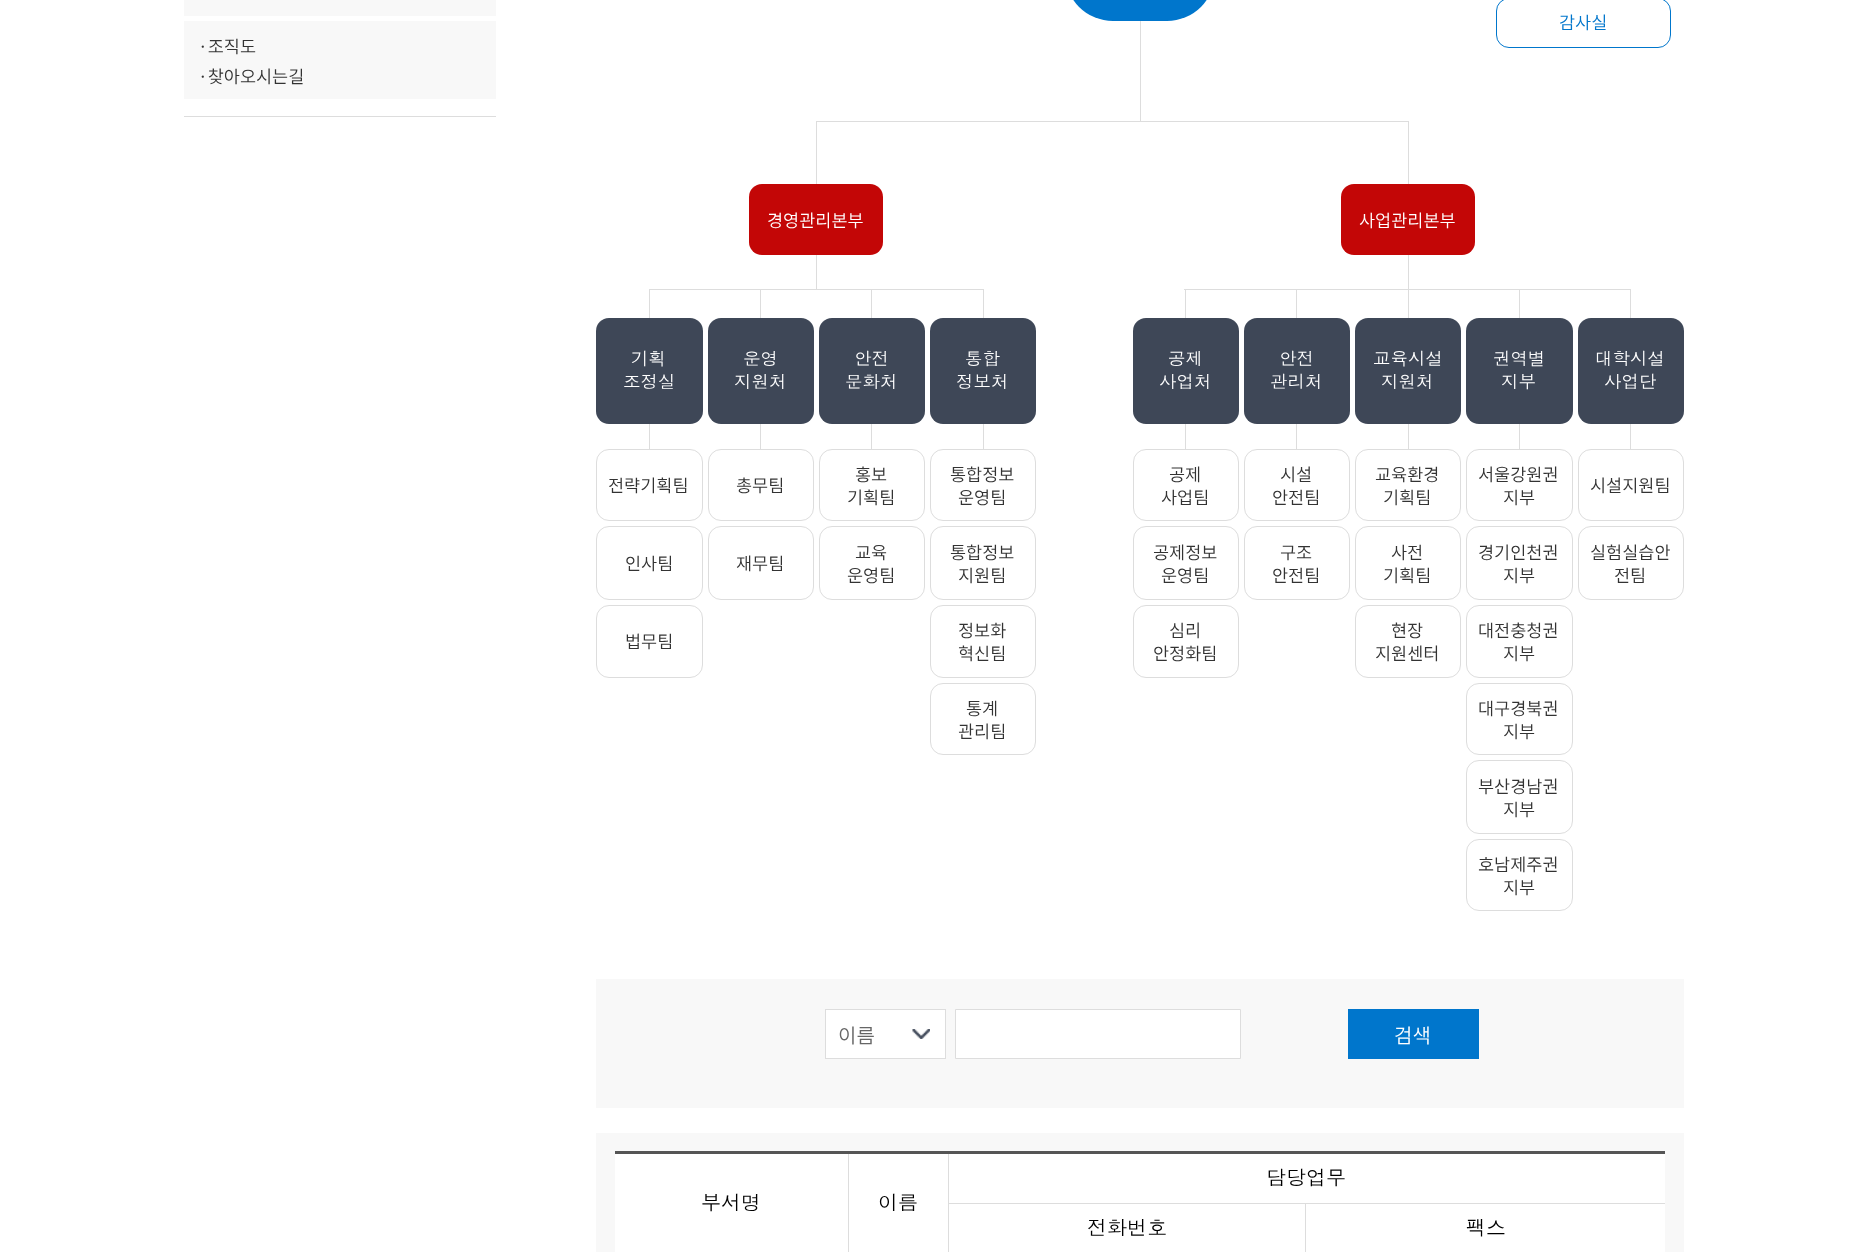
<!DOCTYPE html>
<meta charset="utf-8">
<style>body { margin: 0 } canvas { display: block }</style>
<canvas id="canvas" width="1866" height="1252"></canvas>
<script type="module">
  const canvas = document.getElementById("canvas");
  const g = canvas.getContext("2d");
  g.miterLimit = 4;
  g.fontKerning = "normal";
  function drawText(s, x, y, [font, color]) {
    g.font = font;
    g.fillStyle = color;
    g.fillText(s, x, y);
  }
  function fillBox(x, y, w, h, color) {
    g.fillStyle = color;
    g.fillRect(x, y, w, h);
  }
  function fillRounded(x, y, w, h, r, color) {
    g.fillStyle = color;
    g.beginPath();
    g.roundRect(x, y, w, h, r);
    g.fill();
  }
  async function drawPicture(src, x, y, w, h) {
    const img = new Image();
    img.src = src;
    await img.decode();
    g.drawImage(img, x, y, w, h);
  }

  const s1 = ["300 17.5px Noto Sans KR", "#333333"];
  const s2 = ["300 17.5px Noto Sans KR", "#0076CC"];
  const s3 = ["300 17.5px Noto Sans KR", "#FFFFFF"];
  const s4 = ["17.5px Dotum", "#FFFFFF"];
  const s5 = ["300 20px Noto Sans KR", "#666666"];
  const s6 = ["300 20px Noto Sans KR", "#FFFFFF"];
  const s7 = ["20px Dotum", "#000000"];

  fillBox(0, 0, 1866, 1252, "#FFFFFF");
  fillBox(184, 116, 312, 1, "#DDDDDD");
  fillBox(184, 0, 312, 16, "#F8F8F8");
  fillBox(184, 21, 312, 78, "#F8F8F8");
  drawText("·조직도", 198, 53, s1);
  drawText("·찾아오시는길", 198, 83, s1);
  fillRounded(1065, -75, 150, 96, 75, "#0076CC");
  fillBox(1140, 21, 1, 100, "#DDDDDD");
  g.beginPath();
  g.roundRect(1496.5, -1.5, 174, 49, 12.5);
  g.strokeStyle = "#0076CC";
  g.stroke();
  drawText("감사실", 1559, 29, s2);
  fillBox(816, 121, 1, 169, "#DDDDDD");
  fillBox(1408, 121, 1, 197, "#DDDDDD");
  fillBox(816, 121, 593, 1, "#DDDDDD");
  fillRounded(749, 184, 134, 71, 13, "#C30606");
  drawText("경영관리본부", 767, 227, s3);
  fillBox(649, 289, 335, 1, "#DDDDDD");
  fillBox(649, 290, 1, 28, "#DDDDDD");
  fillRounded(596, 318, 107, 106, 13, "#3E4757");
  drawText("기획", 631, 365, s4);
  drawText("조정실", 623, 388, s4);
  fillBox(649, 424, 1, 25, "#DDDDDD");
  g.beginPath();
  g.roundRect(596.5, 449.5, 106, 71, 12.5);
  g.strokeStyle = "#DDDDDD";
  g.stroke();
  drawText("전략기획팀", 608, 492, s1);
  g.beginPath();
  g.roundRect(596.5, 526.5, 106, 73, 12.5);
  g.stroke();
  drawText("인사팀", 625, 570, s1);
  g.beginPath();
  g.roundRect(596.5, 605.5, 106, 72, 12.5);
  g.stroke();
  drawText("법무팀", 625, 648, s1);
  fillBox(760, 290, 1, 28, "#DDDDDD");
  fillRounded(708, 318, 106, 106, 13, "#3E4757");
  drawText("운영", 743, 365, s4);
  drawText("지원처", 734, 388, s4);
  fillBox(760, 424, 1, 25, "#DDDDDD");
  g.beginPath();
  g.roundRect(708.5, 449.5, 105, 71, 12.5);
  g.stroke();
  drawText("총무팀", 736, 492, s1);
  g.beginPath();
  g.roundRect(708.5, 526.5, 105, 73, 12.5);
  g.stroke();
  drawText("재무팀", 736, 570, s1);
  fillBox(871, 290, 1, 28, "#DDDDDD");
  fillRounded(819, 318, 106, 106, 13, "#3E4757");
  drawText("안전", 854, 365, s4);
  drawText("문화처", 845, 388, s4);
  fillBox(871, 424, 1, 25, "#DDDDDD");
  g.beginPath();
  g.roundRect(819.5, 449.5, 105, 71, 12.5);
  g.stroke();
  drawText("홍보", 855, 481, s1);
  drawText("기획팀", 847, 504, s1);
  g.beginPath();
  g.roundRect(819.5, 526.5, 105, 73, 12.5);
  g.stroke();
  drawText("교육", 855, 559, s1);
  drawText("운영팀", 847, 582, s1);
  fillBox(983, 290, 1, 28, "#DDDDDD");
  fillRounded(930, 318, 106, 106, 13, "#3E4757");
  drawText("통합", 965, 365, s4);
  drawText("정보처", 956, 388, s4);
  fillBox(983, 424, 1, 25, "#DDDDDD");
  g.beginPath();
  g.roundRect(930.5, 449.5, 105, 71, 12.5);
  g.stroke();
  drawText("통합정보", 950, 481, s1);
  drawText("운영팀", 958, 504, s1);
  g.beginPath();
  g.roundRect(930.5, 526.5, 105, 73, 12.5);
  g.stroke();
  drawText("통합정보", 950, 559, s1);
  drawText("지원팀", 958, 582, s1);
  g.beginPath();
  g.roundRect(930.5, 605.5, 105, 72, 12.5);
  g.stroke();
  drawText("정보화", 958, 637, s1);
  drawText("혁신팀", 958, 660, s1);
  g.beginPath();
  g.roundRect(930.5, 683.5, 105, 71, 12.5);
  g.stroke();
  drawText("통계", 966, 715, s1);
  drawText("관리팀", 958, 738, s1);
  fillRounded(1341, 184, 134, 71, 13, "#C30606");
  drawText("사업관리본부", 1359, 227, s3);
  fillBox(1184, 289, 447, 1, "#DDDDDD");
  fillBox(1185, 290, 1, 28, "#DDDDDD");
  fillRounded(1133, 318, 106, 106, 13, "#3E4757");
  drawText("공제", 1168, 365, s4);
  drawText("사업처", 1159, 388, s4);
  fillBox(1185, 424, 1, 25, "#DDDDDD");
  g.beginPath();
  g.roundRect(1133.5, 449.5, 105, 71, 12.5);
  g.stroke();
  drawText("공제", 1169, 481, s1);
  drawText("사업팀", 1161, 504, s1);
  g.beginPath();
  g.roundRect(1133.5, 526.5, 105, 73, 12.5);
  g.stroke();
  drawText("공제정보", 1153, 559, s1);
  drawText("운영팀", 1161, 582, s1);
  g.beginPath();
  g.roundRect(1133.5, 605.5, 105, 72, 12.5);
  g.stroke();
  drawText("심리", 1169, 637, s1);
  drawText("안정화팀", 1153, 660, s1);
  fillBox(1296, 290, 1, 28, "#DDDDDD");
  fillRounded(1244, 318, 106, 106, 13, "#3E4757");
  drawText("안전", 1279, 365, s4);
  drawText("관리처", 1270, 388, s4);
  fillBox(1296, 424, 1, 25, "#DDDDDD");
  g.beginPath();
  g.roundRect(1244.5, 449.5, 105, 71, 12.5);
  g.stroke();
  drawText("시설", 1280, 481, s1);
  drawText("안전팀", 1272, 504, s1);
  g.beginPath();
  g.roundRect(1244.5, 526.5, 105, 73, 12.5);
  g.stroke();
  drawText("구조", 1280, 559, s1);
  drawText("안전팀", 1272, 582, s1);
  fillRounded(1355, 318, 106, 106, 13, "#3E4757");
  drawText("교육시설", 1373, 365, s4);
  drawText("지원처", 1381, 388, s4);
  fillBox(1408, 424, 1, 25, "#DDDDDD");
  g.beginPath();
  g.roundRect(1355.5, 449.5, 105, 71, 12.5);
  g.stroke();
  drawText("교육환경", 1375, 481, s1);
  drawText("기획팀", 1383, 504, s1);
  g.beginPath();
  g.roundRect(1355.5, 526.5, 105, 73, 12.5);
  g.stroke();
  drawText("사전", 1391, 559, s1);
  drawText("기획팀", 1383, 582, s1);
  g.beginPath();
  g.roundRect(1355.5, 605.5, 105, 72, 12.5);
  g.stroke();
  drawText("현장", 1391, 637, s1);
  drawText("지원센터", 1375, 660, s1);
  fillBox(1519, 290, 1, 28, "#DDDDDD");
  fillRounded(1466, 318, 107, 106, 13, "#3E4757");
  drawText("권역별", 1493, 365, s4);
  drawText("지부", 1501, 388, s4);
  fillBox(1519, 424, 1, 25, "#DDDDDD");
  g.beginPath();
  g.roundRect(1466.5, 449.5, 106, 71, 12.5);
  g.stroke();
  drawText("서울강원권", 1478, 481, s1);
  drawText("지부", 1503, 504, s1);
  g.beginPath();
  g.roundRect(1466.5, 526.5, 106, 73, 12.5);
  g.stroke();
  drawText("경기인천권", 1478, 559, s1);
  drawText("지부", 1503, 582, s1);
  g.beginPath();
  g.roundRect(1466.5, 605.5, 106, 72, 12.5);
  g.stroke();
  drawText("대전충청권", 1478, 637, s1);
  drawText("지부", 1503, 660, s1);
  g.beginPath();
  g.roundRect(1466.5, 683.5, 106, 71, 12.5);
  g.stroke();
  drawText("대구경북권", 1478, 715, s1);
  drawText("지부", 1503, 738, s1);
  g.beginPath();
  g.roundRect(1466.5, 760.5, 106, 73, 12.5);
  g.stroke();
  drawText("부산경남권", 1478, 793, s1);
  drawText("지부", 1503, 816, s1);
  g.beginPath();
  g.roundRect(1466.5, 839.5, 106, 71, 12.5);
  g.stroke();
  drawText("호남제주권", 1478, 871, s1);
  drawText("지부", 1503, 894, s1);
  fillBox(1630, 290, 1, 28, "#DDDDDD");
  fillRounded(1578, 318, 106, 106, 13, "#3E4757");
  drawText("대학시설", 1595, 365, s4);
  drawText("사업단", 1604, 388, s4);
  fillBox(1630, 424, 1, 25, "#DDDDDD");
  g.beginPath();
  g.roundRect(1578.5, 449.5, 105, 71, 12.5);
  g.stroke();
  drawText("시설지원팀", 1590, 492, s1);
  g.beginPath();
  g.roundRect(1578.5, 526.5, 105, 73, 12.5);
  g.stroke();
  drawText("실험실습안", 1590, 559, s1);
  drawText("전팀", 1614, 582, s1);
  fillBox(596, 979, 1088, 129, "#F8F8F8");
  fillBox(826, 1010, 119, 48, "#FFFFFF");
  await drawPicture("pic1.png", 912, 1029, 18, 10);
  g.strokeRect(825.5, 1009.5, 120, 49);
  drawText("이름", 838, 1043, s5);
  g.fillStyle = "#FFFFFF";
  g.beginPath();
  g.rect(955.5, 1009.5, 285, 49);
  g.fill();
  g.stroke();
  fillBox(1348, 1009, 131, 50, "#0076CC");
  drawText("검색", 1394, 1043, s6);
  fillBox(596, 1133, 1088, 119, "#F8F8F8");
  fillBox(848, 1153, 1, 99, "#DDDDDD");
  fillBox(1305, 1203, 360, 1, "#DDDDDD");
  fillBox(1305, 1203, 1, 49, "#DDDDDD");
  fillBox(948, 1203, 358, 1, "#DDDDDD");
  fillBox(948, 1153, 1, 99, "#DDDDDD");
  fillBox(615, 1151, 1050, 3, "#555555");
  fillBox(949, 1154, 716, 49, "#FFFFFF");
  drawText("담당업무", 1266, 1185, s7);
  fillBox(615, 1154, 233, 98, "#FFFFFF");
  drawText("부서명", 701, 1210, s7);
  fillBox(849, 1154, 99, 98, "#FFFFFF");
  drawText("이름", 878, 1210, s7);
  fillBox(949, 1204, 356, 48, "#FFFFFF");
  drawText("전화번호", 1087, 1235, s7);
  fillBox(1306, 1204, 359, 48, "#FFFFFF");
  drawText("팩스", 1466, 1235, s7);
</script>
